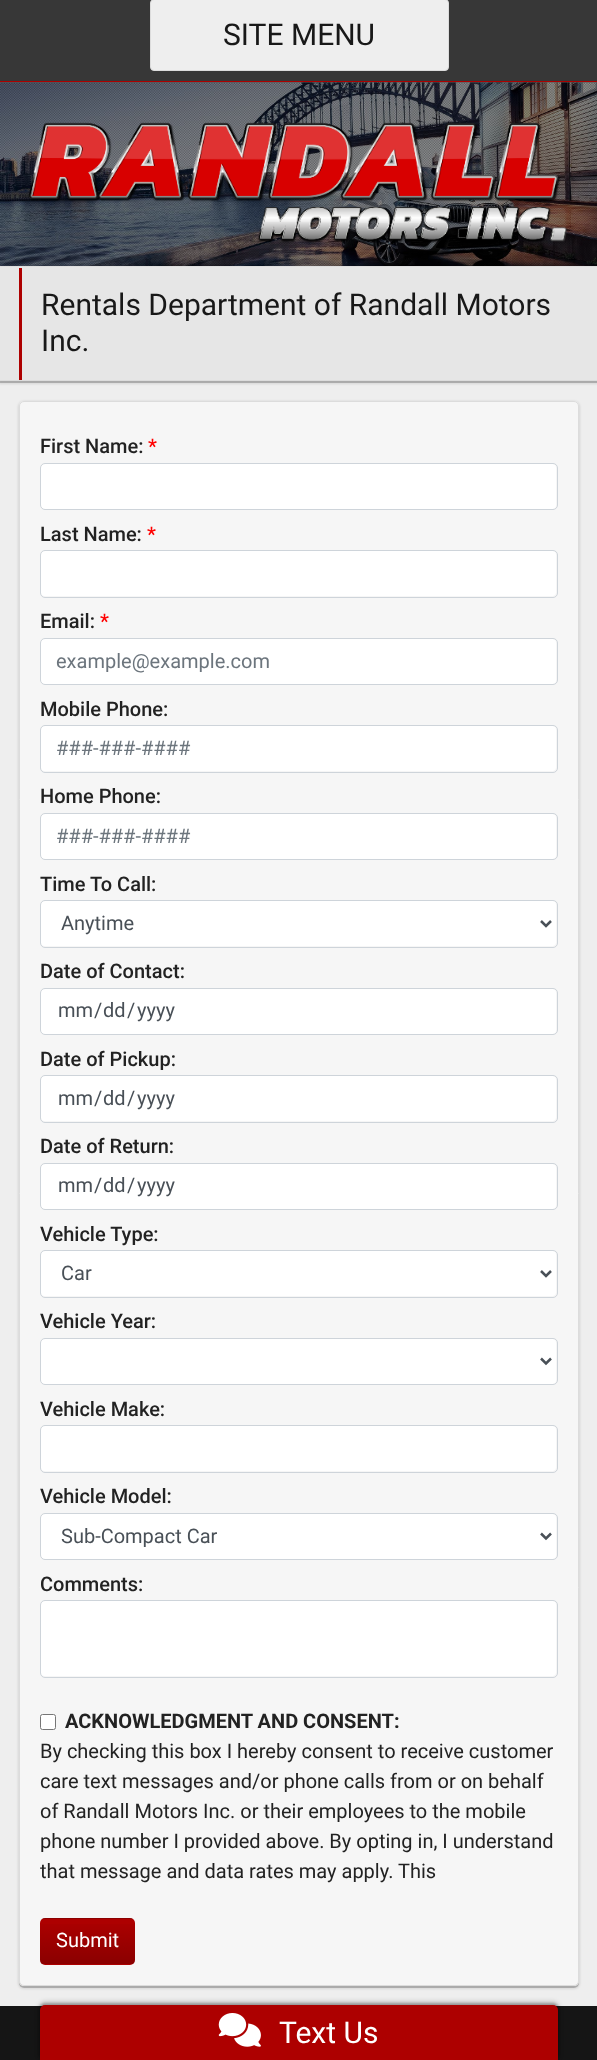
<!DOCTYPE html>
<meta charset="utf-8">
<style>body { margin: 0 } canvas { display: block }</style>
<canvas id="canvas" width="597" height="2060"></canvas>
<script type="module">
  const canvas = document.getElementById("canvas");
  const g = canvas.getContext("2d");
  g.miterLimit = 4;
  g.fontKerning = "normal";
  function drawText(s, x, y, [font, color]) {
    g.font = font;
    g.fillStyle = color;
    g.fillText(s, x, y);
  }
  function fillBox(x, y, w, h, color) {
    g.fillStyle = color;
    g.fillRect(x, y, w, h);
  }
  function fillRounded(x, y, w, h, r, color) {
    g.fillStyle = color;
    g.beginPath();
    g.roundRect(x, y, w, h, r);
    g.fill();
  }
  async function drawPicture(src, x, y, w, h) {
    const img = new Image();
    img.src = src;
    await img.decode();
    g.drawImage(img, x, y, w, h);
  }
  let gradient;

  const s1 = ["30px Roboto", "#181818"];
  const s2 = ["500 20px Roboto", "#222222"];
  const s3 = ["500 20px Roboto", "#FF0000"];
  const s4 = ["20px Roboto", "#6C757D"];
  const s5 = ["20px Roboto", "#495057"];
  const s6 = ["bold 20px Roboto", "#222222"];
  const s7 = ["20px Roboto", "#222222"];
  const s8 = ["20px Roboto", "#FFFFFF"];
  const s9 = ["30px Roboto", "#FFFFFF"];

  fillBox(0, 0, 597, 2060, "#EEEEEE");
  g.save();
  g.beginPath();
  g.moveTo(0, 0);
  g.lineTo(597, 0);
  g.lineTo(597, 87);
  g.lineTo(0, 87);
  g.closePath();
  g.moveTo(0, -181);
  g.lineTo(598, -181);
  g.lineTo(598, 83);
  g.lineTo(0, 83);
  g.closePath();
  g.clip("evenodd");
  g.fillStyle = "rgba(0, 0, 0, 0.2)";
  g.filter = "blur(0.5px)";
  g.beginPath();
  g.rect(0, -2, 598, 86);
  g.fill();
  g.filter = "none";
  g.restore();
  g.save();
  g.beginPath();
  g.moveTo(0, 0);
  g.lineTo(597, 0);
  g.lineTo(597, 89);
  g.lineTo(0, 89);
  g.closePath();
  g.moveTo(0, -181);
  g.lineTo(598, -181);
  g.lineTo(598, 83);
  g.lineTo(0, 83);
  g.closePath();
  g.clip("evenodd");
  g.fillStyle = "rgba(0, 0, 0, 0.1)";
  g.filter = "blur(1px)";
  g.beginPath();
  g.rect(-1, -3, 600, 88);
  g.fill();
  g.filter = "none";
  g.restore();
  fillBox(0, 0, 597, 83, "rgba(34, 34, 34, 0.9)");
  fillBox(0, 81, 597, 1, "#AD0000");
  g.fillStyle = "#EEEEEE";
  g.beginPath();
  g.roundRect(150.5, -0.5, 298, 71, 3.5);
  g.fill();
  g.strokeStyle = "#DCDCDC";
  g.stroke();
  drawText("SITE MENU", 223, 45, s1);
  await drawPicture("pic1.png", 0, 82, 597, 184);
  await drawPicture("pic2.png", 0, 83, 597, 183);
  await drawPicture("pic3.png", 29, 122, 538, 121);
  g.fillStyle = "rgba(0, 0, 0, 0.2)";
  g.filter = "blur(0.5px)";
  g.beginPath();
  g.rect(0, 268, 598, 115);
  g.fill();
  g.filter = "none";
  g.fillStyle = "rgba(0, 0, 0, 0.1)";
  g.filter = "blur(1px)";
  g.beginPath();
  g.rect(-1, 266, 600, 118);
  g.fill();
  g.filter = "none";
  fillBox(0, 267, 597, 113, "#E6E6E6");
  fillBox(0, 380, 597, 1, "#DCDCDC");
  fillBox(19, 268, 3, 112, "#AD0000");
  drawText("Rentals Department of Randall Motors", 41, 315, s1);
  drawText("Inc.", 41, 351, s1);
  g.save();
  g.beginPath();
  g.moveTo(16, 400);
  g.lineTo(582, 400);
  g.lineTo(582, 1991);
  g.lineTo(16, 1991);
  g.closePath();
  g.moveTo(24, 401);
  g.lineTo(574, 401);
  g.bezierCurveTo(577, 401, 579, 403, 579, 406);
  g.lineTo(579, 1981);
  g.bezierCurveTo(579, 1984, 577, 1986, 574, 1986);
  g.lineTo(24, 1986);
  g.bezierCurveTo(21, 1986, 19, 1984, 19, 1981);
  g.lineTo(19, 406);
  g.bezierCurveTo(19, 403, 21, 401, 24, 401);
  g.closePath();
  g.clip("evenodd");
  g.fillStyle = "rgba(0, 0, 0, 0.2)";
  g.filter = "blur(0.5px)";
  g.beginPath();
  g.roundRect(19, 403, 560, 1585, 5);
  g.fill();
  g.filter = "none";
  g.restore();
  g.save();
  g.beginPath();
  g.moveTo(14, 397);
  g.lineTo(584, 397);
  g.lineTo(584, 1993);
  g.lineTo(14, 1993);
  g.closePath();
  g.moveTo(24, 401);
  g.lineTo(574, 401);
  g.bezierCurveTo(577, 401, 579, 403, 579, 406);
  g.lineTo(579, 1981);
  g.bezierCurveTo(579, 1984, 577, 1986, 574, 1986);
  g.lineTo(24, 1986);
  g.bezierCurveTo(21, 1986, 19, 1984, 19, 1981);
  g.lineTo(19, 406);
  g.bezierCurveTo(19, 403, 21, 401, 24, 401);
  g.closePath();
  g.clip("evenodd");
  g.fillStyle = "rgba(0, 0, 0, 0.1)";
  g.filter = "blur(1px)";
  g.beginPath();
  g.roundRect(18, 401, 562, 1588, 6);
  g.fill();
  g.filter = "none";
  g.restore();
  g.fillStyle = "rgba(251, 251, 251, 0.6)";
  g.beginPath();
  g.roundRect(19.5, 401.5, 559, 1584, 4.5);
  g.fill();
  g.stroke();
  drawText("First Name:", 40, 453, s2);
  drawText("*", 148, 453, s3);
  fillRounded(41, 464, 515, 45, 4, "#FFFFFF");
  g.beginPath();
  g.roundRect(40.5, 463.5, 517, 46, 4.5);
  g.strokeStyle = "#CED4DA";
  g.stroke();
  drawText("Last Name:", 40, 541, s2);
  drawText("*", 147, 541, s3);
  fillRounded(41, 551, 515, 45, 4, "#FFFFFF");
  g.beginPath();
  g.roundRect(40.5, 550.5, 517, 47, 4.5);
  g.stroke();
  drawText("Email:", 40, 628, s2);
  drawText("*", 100, 628, s3);
  fillRounded(41, 639, 515, 45, 4, "#FFFFFF");
  g.beginPath();
  g.roundRect(40.5, 638.5, 517, 46, 4.5);
  g.stroke();
  drawText("example@example.com", 56, 668, s4);
  drawText("Mobile Phone:", 40, 716, s2);
  fillRounded(41, 726, 515, 45, 4, "#FFFFFF");
  g.beginPath();
  g.roundRect(40.5, 725.5, 517, 47, 4.5);
  g.stroke();
  drawText("###-###-####", 56, 755, s4);
  drawText("Home Phone:", 40, 803, s2);
  fillRounded(41, 814, 515, 45, 4, "#FFFFFF");
  g.beginPath();
  g.roundRect(40.5, 813.5, 517, 46, 4.5);
  g.stroke();
  drawText("###-###-####", 56, 843, s4);
  drawText("Time To Call:", 40, 891, s2);
  fillRounded(41, 901, 515, 45, 4, "#FFFFFF");
  g.beginPath();
  g.roundRect(40.5, 900.5, 517, 47, 4.5);
  g.stroke();
  g.beginPath();
  g.moveTo(541, 921);
  g.lineTo(546, 926);
  g.lineTo(551, 921);
  g.strokeStyle = "#495057";
  g.lineWidth = 2.5;
  g.stroke();
  drawText("Anytime", 61, 930, s5);
  drawText("Date of Contact:", 40, 978, s2);
  fillRounded(41, 989, 515, 45, 4, "#FFFFFF");
  g.beginPath();
  g.roundRect(40.5, 988.5, 517, 46, 4.5);
  g.strokeStyle = "#CED4DA";
  g.lineWidth = 1;
  g.stroke();
  drawText("mm", 58, 1017, s5);
  drawText("/", 94, 1017, s5);
  drawText("dd", 103, 1017, s5);
  drawText("/", 127, 1017, s5);
  drawText("yyyy", 137, 1017, s5);
  drawText("Date of Pickup:", 40, 1066, s2);
  fillRounded(41, 1076, 515, 45, 4, "#FFFFFF");
  g.beginPath();
  g.roundRect(40.5, 1075.5, 517, 47, 4.5);
  g.stroke();
  drawText("mm", 58, 1105, s5);
  drawText("/", 94, 1105, s5);
  drawText("dd", 103, 1105, s5);
  drawText("/", 127, 1105, s5);
  drawText("yyyy", 137, 1105, s5);
  drawText("Date of Return:", 40, 1153, s2);
  fillRounded(41, 1164, 515, 45, 4, "#FFFFFF");
  g.beginPath();
  g.roundRect(40.5, 1163.5, 517, 46, 4.5);
  g.stroke();
  drawText("mm", 58, 1192, s5);
  drawText("/", 94, 1192, s5);
  drawText("dd", 103, 1192, s5);
  drawText("/", 127, 1192, s5);
  drawText("yyyy", 137, 1192, s5);
  drawText("Vehicle Type:", 40, 1241, s2);
  fillRounded(41, 1251, 515, 45, 4, "#FFFFFF");
  g.beginPath();
  g.roundRect(40.5, 1250.5, 517, 47, 4.5);
  g.stroke();
  g.beginPath();
  g.moveTo(541, 1271);
  g.lineTo(546, 1276);
  g.lineTo(551, 1271);
  g.strokeStyle = "#495057";
  g.lineWidth = 2.5;
  g.stroke();
  drawText("Car", 61, 1280, s5);
  drawText("Vehicle Year:", 40, 1328, s2);
  fillRounded(41, 1339, 515, 45, 4, "#FFFFFF");
  g.beginPath();
  g.roundRect(40.5, 1338.5, 517, 46, 4.5);
  g.strokeStyle = "#CED4DA";
  g.lineWidth = 1;
  g.stroke();
  g.beginPath();
  g.moveTo(541, 1358.5);
  g.lineTo(546, 1363.5);
  g.lineTo(551, 1358.5);
  g.strokeStyle = "#495057";
  g.lineWidth = 2.5;
  g.stroke();
  drawText("Vehicle Make:", 40, 1416, s2);
  fillRounded(41, 1426, 515, 45, 4, "#FFFFFF");
  g.beginPath();
  g.roundRect(40.5, 1425.5, 517, 47, 4.5);
  g.strokeStyle = "#CED4DA";
  g.lineWidth = 1;
  g.stroke();
  drawText("Vehicle Model:", 40, 1503, s2);
  fillRounded(41, 1514, 515, 45, 4, "#FFFFFF");
  g.beginPath();
  g.roundRect(40.5, 1513.5, 517, 46, 4.5);
  g.stroke();
  g.beginPath();
  g.moveTo(541, 1533.5);
  g.lineTo(546, 1538.5);
  g.lineTo(551, 1533.5);
  g.strokeStyle = "#495057";
  g.lineWidth = 2.5;
  g.stroke();
  drawText("Sub-Compact Car", 61, 1543, s5);
  drawText("Comments:", 40, 1591, s2);
  fillRounded(41, 1601, 515, 75, 4, "#FFFFFF");
  g.beginPath();
  g.roundRect(40.5, 1600.5, 517, 77, 4.5);
  g.strokeStyle = "#CED4DA";
  g.lineWidth = 1;
  g.stroke();
  g.beginPath();
  g.roundRect(40.5, 1714.5, 15, 15, 2);
  g.fill();
  g.strokeStyle = "#767676";
  g.stroke();
  drawText("ACKNOWLEDGMENT AND CONSENT:", 65, 1728, s6);
  drawText("By checking this box I hereby consent to receive customer", 40, 1758, s7);
  drawText("care text messages and/or phone calls from or on behalf", 40, 1788, s7);
  drawText("of Randall Motors Inc. or their employees to the mobile", 40, 1818, s7);
  drawText("phone number I provided above. By opting in, I understand", 40, 1848, s7);
  drawText("that message and data rates may apply. This", 40, 1878, s7);
  fillRounded(40, 1918, 95, 47, 5, "#AD0000");
  g.save();
  g.beginPath();
  g.roundRect(40, 1918, 95, 47, 5);
  g.clip();
  gradient = g.createLinearGradient(88, 1874, 88, 1919);
  gradient.addColorStop(0, "rgba(0, 0, 0, 0)");
  gradient.addColorStop(1, "rgba(0, 0, 0, 0.2)");
  g.fillStyle = gradient;
  g.fillRect(40, 1918, 95, 1);
  gradient = g.createLinearGradient(88, 1919, 88, 1964);
  gradient.addColorStop(0, "rgba(0, 0, 0, 0)");
  gradient.addColorStop(1, "rgba(0, 0, 0, 0.2)");
  g.fillStyle = gradient;
  g.fillRect(40, 1924, 95, 40);
  g.restore();
  drawText("Submit", 56, 1947, s8);
  fillBox(0, 2006, 597, 54, "#151515");
  g.fillStyle = "rgba(0, 0, 0, 0.25)";
  g.filter = "blur(1px)";
  g.beginPath();
  g.roundRect(39, 2003, 520, 57, 6);
  g.fill();
  g.filter = "none";
  g.fillStyle = "rgba(0, 0, 0, 0.15)";
  g.filter = "blur(2px)";
  g.beginPath();
  g.roundRect(38, 2001, 522, 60, 8);
  g.fill();
  g.filter = "none";
  g.fillStyle = "#AD0000";
  g.beginPath();
  g.roundRect(40, 2005, 518, 55, [5, 5, 0, 0]);
  g.fill();
  await drawPicture("pic4.png", 218, 2013, 43, 34);
  drawText("Text Us", 279, 2043, s9);
</script>
